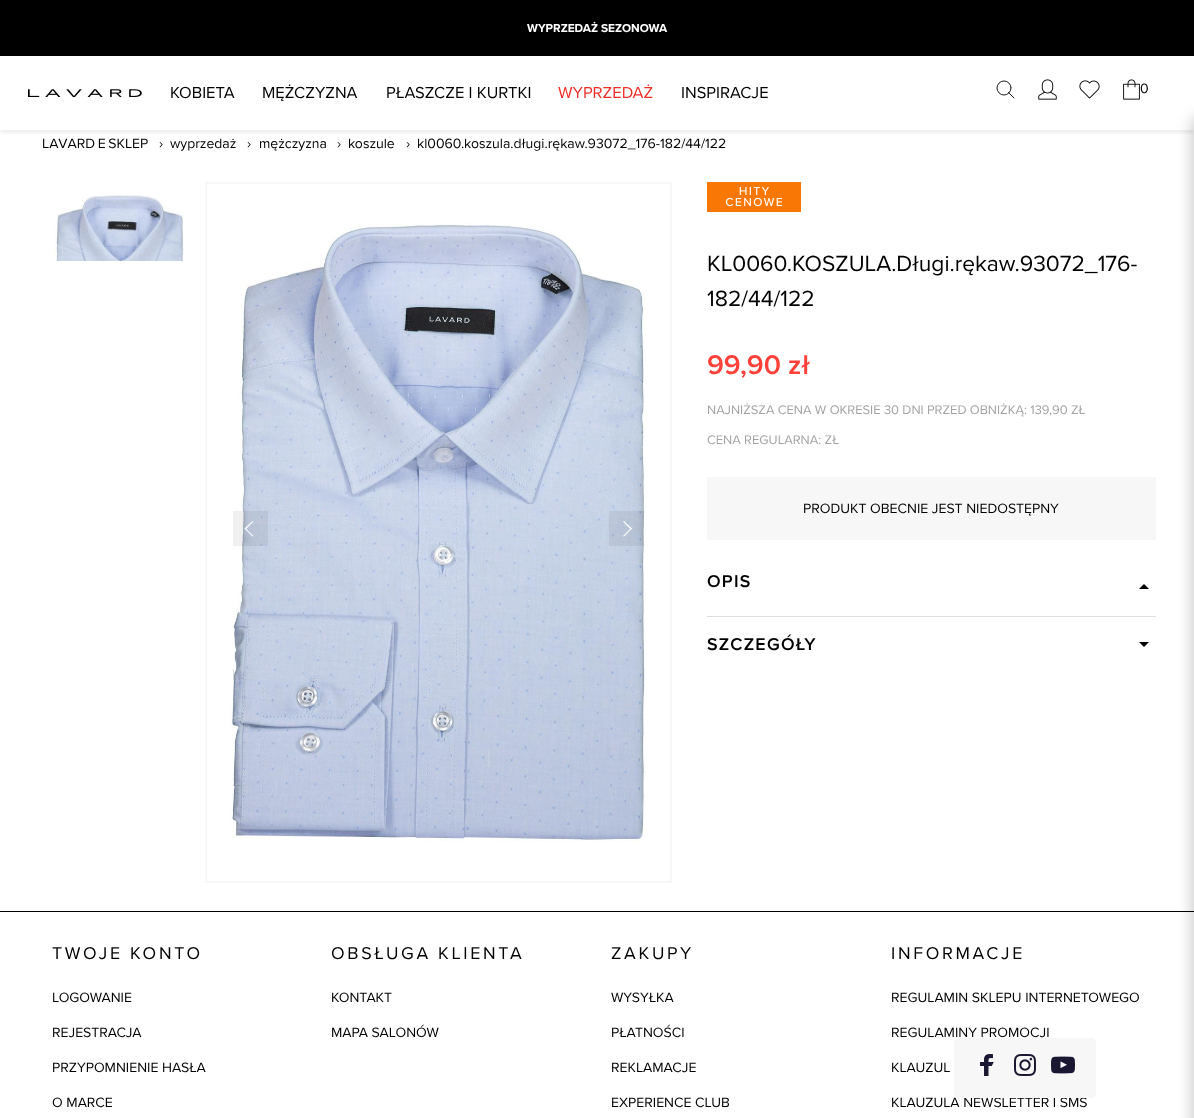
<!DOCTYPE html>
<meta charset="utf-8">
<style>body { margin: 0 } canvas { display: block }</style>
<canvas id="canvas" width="1194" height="1118"></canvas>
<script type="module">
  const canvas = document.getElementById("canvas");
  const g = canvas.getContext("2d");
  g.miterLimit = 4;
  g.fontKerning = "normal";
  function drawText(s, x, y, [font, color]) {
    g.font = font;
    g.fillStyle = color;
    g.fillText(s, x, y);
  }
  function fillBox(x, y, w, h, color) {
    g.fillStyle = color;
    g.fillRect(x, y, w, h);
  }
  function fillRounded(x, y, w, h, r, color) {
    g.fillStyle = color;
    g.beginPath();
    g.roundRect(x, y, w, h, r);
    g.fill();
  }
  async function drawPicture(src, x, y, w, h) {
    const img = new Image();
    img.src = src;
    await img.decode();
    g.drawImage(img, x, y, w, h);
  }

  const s1 = ["bold 11.9px Proxima Nova", "#FFFFFF"];
  const s2 = ["16.5px Proxima Nova", "#000000"];
  const s3 = ["16.5px Proxima Nova", "#F02F28"];
  const s4 = ["14px Proxima Nova", "#000000"];
  const s5 = ["22.75px Proxima Nova", "#000000"];
  const s6 = ["600 28px Proxima Nova", "#FF4139"];
  const s7 = ["12.95px Proxima Nova", "#A3A3A3"];
  const s8 = ["600 17.8px Proxima Nova", "#000000"];
  const s9 = ["17.8px Proxima Nova", "#000000"];

  fillBox(0, 0, 1194, 1118, "#FFFFFF");
  g.save();
  g.beginPath();
  g.rect(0, 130, 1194, 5);
  g.clip();
  g.fillStyle = "rgba(177, 177, 177, 0.2)";
  g.filter = "blur(1.5px)";
  g.beginPath();
  g.rect(0, 3, 1194, 130);
  g.fill();
  g.filter = "none";
  g.restore();
  fillBox(0, 0, 1194, 56, "#000000");
  drawText("WYPRZEDAŻ SEZONOWA", 527, 32, s1);
  await drawPicture("pic1.png", 28, 89, 114, 8);
  drawText("KOBIETA", 170, 98, s2);
  drawText("MĘŻCZYZNA", 262, 98, s2);
  drawText("PŁASZCZE I KURTKI", 386, 98, s2);
  drawText("WYPRZEDAŻ", 558, 98, s3);
  drawText("INSPIRACJE", 681, 98, s2);
  g.beginPath();
  g.moveTo(1014, 98);
  g.lineTo(1008.5, 92.5);
  g.strokeStyle = "#000000";
  g.lineWidth = 0.9;
  g.lineCap = "round";
  g.lineJoin = "round";
  g.stroke();
  g.beginPath();
  g.arc(1004, 88, 7, 0, Math.PI * 2);
  g.stroke();
  await drawPicture("pic2.png", 1038, 79, 19, 21);
  await drawPicture("pic3.png", 1079, 80, 21, 19);
  await drawPicture("pic4.png", 1123, 79, 17, 21);
  drawText("0", 1140, 93, s4);
  fillBox(0, 911, 1194, 1, "#000000");
  g.fillStyle = "rgba(0, 0, 0, 0.21)";
  g.filter = "blur(7.5px)";
  g.beginPath();
  g.rect(1192, 118, 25, 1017);
  g.fill();
  g.filter = "none";
  g.wordSpacing = "-1px";
  drawText("LAVARD E SKLEP", 42, 148, s4);
  g.wordSpacing = "0px";
  drawText("›", 159, 148, s4);
  drawText("wyprzedaż", 170, 148, s4);
  drawText("›", 247, 148, s4);
  drawText("mężczyzna", 259, 148, s4);
  drawText("›", 337, 148, s4);
  drawText("koszule", 348, 148, s4);
  drawText("›", 406, 148, s4);
  drawText("kl0060.koszula.długi.rękaw.93072_176-182/44/122", 417, 148, s4);
  await drawPicture("pic5.png", 53, 195, 131, 66);
  g.strokeStyle = "#F7F7F7";
  g.lineWidth = 2;
  g.lineJoin = "miter";
  g.strokeRect(206, 183, 465, 699);
  await drawPicture("pic6.png", 229, 223, 417, 619);
  fillBox(233, 511, 35, 35, "rgba(0, 0, 0, 0.06)");
  g.fillStyle = "#FFFFFF";
  g.beginPath();
  g.moveTo(244.5, 528.5);
  g.lineTo(252.5, 521);
  g.lineTo(253.5, 521.5);
  g.lineTo(245.5, 529.5);
  g.closePath();
  g.fill();
  g.beginPath();
  g.moveTo(244.5, 528.5);
  g.lineTo(245.5, 528);
  g.lineTo(253.5, 536);
  g.lineTo(252.5, 536.5);
  g.closePath();
  g.fill();
  fillBox(609, 511, 35, 35, "rgba(0, 0, 0, 0.06)");
  g.fillStyle = "#FFFFFF";
  g.beginPath();
  g.moveTo(624, 521);
  g.lineTo(632, 528.5);
  g.lineTo(631, 529.5);
  g.lineTo(623, 521.5);
  g.closePath();
  g.fill();
  g.beginPath();
  g.moveTo(631, 528);
  g.lineTo(632, 528.5);
  g.lineTo(624, 536.5);
  g.lineTo(623, 536);
  g.closePath();
  g.fill();
  await drawPicture("pic7.png", 707, 182, 94, 30);
  drawText("KL0060.KOSZULA.Długi.rękaw.93072_176-", 707, 271, s5);
  drawText("182/44/122", 707, 306, s5);
  drawText("99,90 zł", 707, 374, s6);
  drawText("NAJNIŻSZA CENA W OKRESIE 30 DNI PRZED OBNIŻKĄ: 139,90 ZŁ", 707, 414, s7);
  drawText("CENA REGULARNA: ZŁ", 707, 444, s7);
  fillBox(707, 477, 449, 63, "#F7F7F7");
  drawText("PRODUKT OBECNIE JEST NIEDOSTĘPNY", 803, 513, s4);
  fillBox(707, 616, 449, 1, "#DDDDDD");
  g.letterSpacing = "1.25px";
  drawText("OPIS", 707, 587, s8);
  g.beginPath();
  g.moveTo(1149, 589);
  g.lineTo(1139, 589);
  g.lineTo(1144, 584);
  g.closePath();
  g.fill();
  drawText("SZCZEGÓŁY", 707, 650, s8);
  g.beginPath();
  g.moveTo(1139, 642);
  g.lineTo(1149, 642);
  g.lineTo(1144, 647);
  g.closePath();
  g.fill();
  g.letterSpacing = "0px";
  drawText("KLAUZULA NEWSLETTER I SMS", 891, 1107, s4);
  fillRounded(954, 1038, 142, 60, 5, "#F7F7F7");
  await drawPicture("pic8.png", 980, 1054, 14, 22);
  await drawPicture("pic9.png", 1014, 1054, 22, 22);
  await drawPicture("pic10.png", 1051, 1056, 24, 18);
  g.letterSpacing = "2.7px";
  drawText("TWOJE KONTO", 52, 959, s9);
  g.letterSpacing = "0px";
  drawText("LOGOWANIE", 52, 1002, s4);
  drawText("REJESTRACJA", 52, 1037, s4);
  drawText("PRZYPOMNIENIE HASŁA", 52, 1072, s4);
  drawText("O MARCE", 52, 1107, s4);
  g.letterSpacing = "2.7px";
  drawText("OBSŁUGA KLIENTA", 331, 959, s9);
  g.letterSpacing = "0px";
  drawText("KONTAKT", 331, 1002, s4);
  drawText("MAPA SALONÓW", 331, 1037, s4);
  g.letterSpacing = "2.7px";
  drawText("ZAKUPY", 611, 959, s9);
  g.letterSpacing = "0px";
  drawText("WYSYŁKA", 611, 1002, s4);
  drawText("PŁATNOŚCI", 611, 1037, s4);
  drawText("REKLAMACJE", 611, 1072, s4);
  drawText("EXPERIENCE CLUB", 611, 1107, s4);
  g.letterSpacing = "2.7px";
  drawText("INFORMACJE", 891, 959, s9);
  g.letterSpacing = "0px";
  drawText("REGULAMIN SKLEPU INTERNETOWEGO", 891, 1002, s4);
  drawText("REGULAMINY PROMOCJI", 891, 1037, s4);
  drawText("KLAUZUL", 891, 1072, s4);
</script>
